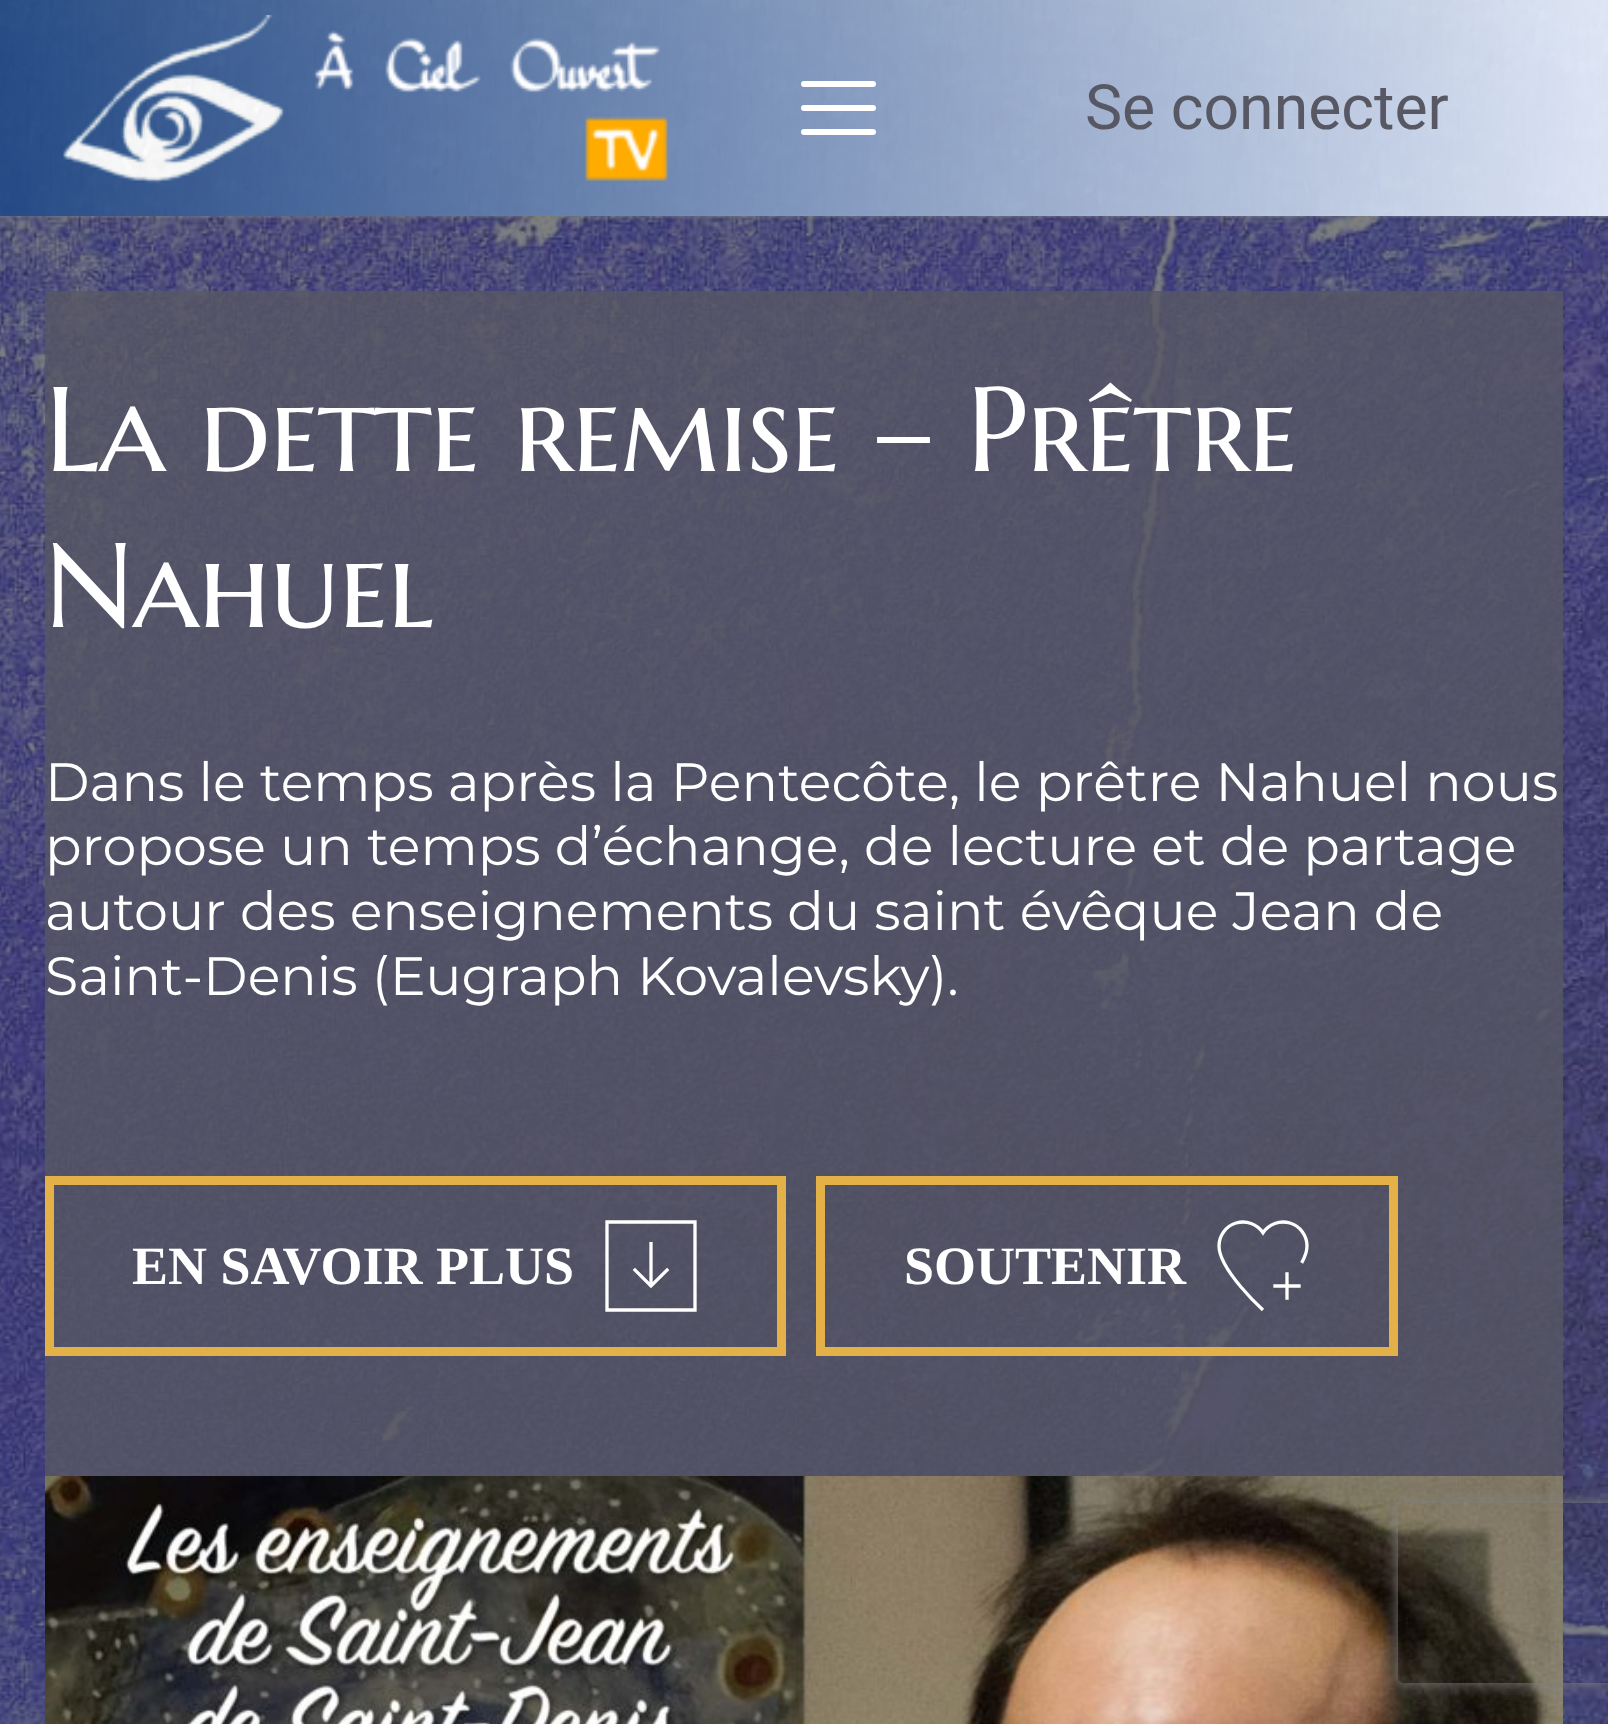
<!DOCTYPE html>
<meta charset="utf-8">
<style>body { margin: 0 } canvas { display: block }</style>
<canvas id="canvas" width="1608" height="1724"></canvas>
<script type="module">
  const canvas = document.getElementById("canvas");
  const g = canvas.getContext("2d");
  g.miterLimit = 4;
  g.fontKerning = "normal";
  function drawText(s, x, y, [font, color]) {
    g.font = font;
    g.fillStyle = color;
    g.fillText(s, x, y);
  }
  function fillBox(x, y, w, h, color) {
    g.fillStyle = color;
    g.fillRect(x, y, w, h);
  }
  function fillRounded(x, y, w, h, r, color) {
    g.fillStyle = color;
    g.beginPath();
    g.roundRect(x, y, w, h, r);
    g.fill();
  }
  async function drawPicture(src, x, y, w, h) {
    const img = new Image();
    img.src = src;
    await img.decode();
    g.drawImage(img, x, y, w, h);
  }

  const s1 = ["62.5px Roboto", "#575864"];
  const s2 = ["120px Marcellus SC", "#FFFFFF"];
  const s3 = ["100 54px Montserrat", "#FFFFFF"];
  const s4 = ["bold 54px Liberation Serif", "#FFFFFF"];

  fillBox(0, 0, 1608, 1724, "#FFFFFF");
  await drawPicture("pic1.png", 0, 0, 1608, 216);
  await drawPicture("pic2.png", 62, 15, 608, 169);
  fillRounded(801, 81, 75, 6, 3, "#FFFFFF");
  fillRounded(801, 105, 75, 6, 3, "#FFFFFF");
  fillRounded(801, 129, 75, 6, 3, "#FFFFFF");
  drawText("Se connecter", 1085, 129, s1);
  await drawPicture("pic3.png", 0, 216, 1608, 1508);
  fillBox(45, 291, 1518, 1185, "rgba(87, 88, 100, 0.8)");
  g.letterSpacing = "-1.5px";
  drawText("La dette remise – Prêtre", 45, 471, s2);
  drawText("Nahuel", 45, 627, s2);
  g.letterSpacing = "0px";
  drawText("Dans le temps après la Pentecôte, le prêtre Nahuel nous", 45, 801, s3);
  drawText("propose un temps d’échange, de lecture et de partage", 45, 865, s3);
  drawText("autour des enseignements du saint évêque Jean de", 45, 930, s3);
  drawText("Saint-Denis (Eugraph Kovalevsky).", 45, 995, s3);
  g.strokeStyle = "#E4B149";
  g.lineWidth = 9;
  g.strokeRect(49.5, 1180.5, 732, 171);
  drawText("EN SAVOIR PLUS", 132, 1284, s4);
  await drawPicture("pic4.png", 605, 1220, 92, 92);
  g.strokeRect(820.5, 1180.5, 573, 171);
  drawText("SOUTENIR", 904, 1284, s4);
  await drawPicture("pic5.png", 1217, 1220, 92, 92);
  await drawPicture("pic6.png", 45, 1476, 1518, 248);
  g.save();
  g.beginPath();
  g.moveTo(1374, 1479);
  g.lineTo(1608, 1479);
  g.lineTo(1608, 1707);
  g.lineTo(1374, 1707);
  g.closePath();
  g.moveTo(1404, 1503);
  g.lineTo(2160, 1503);
  g.bezierCurveTo(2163.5, 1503, 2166, 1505.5, 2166, 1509);
  g.lineTo(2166, 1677);
  g.bezierCurveTo(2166, 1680.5, 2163.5, 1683, 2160, 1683);
  g.lineTo(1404, 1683);
  g.bezierCurveTo(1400.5, 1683, 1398, 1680.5, 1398, 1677);
  g.lineTo(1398, 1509);
  g.bezierCurveTo(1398, 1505.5, 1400.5, 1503, 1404, 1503);
  g.closePath();
  g.clip("evenodd");
  g.fillStyle = "#808080";
  g.filter = "blur(7.5px)";
  g.beginPath();
  g.roundRect(1398, 1503, 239, 180, 6);
  g.fill();
  g.filter = "none";
  g.restore();
</script>
